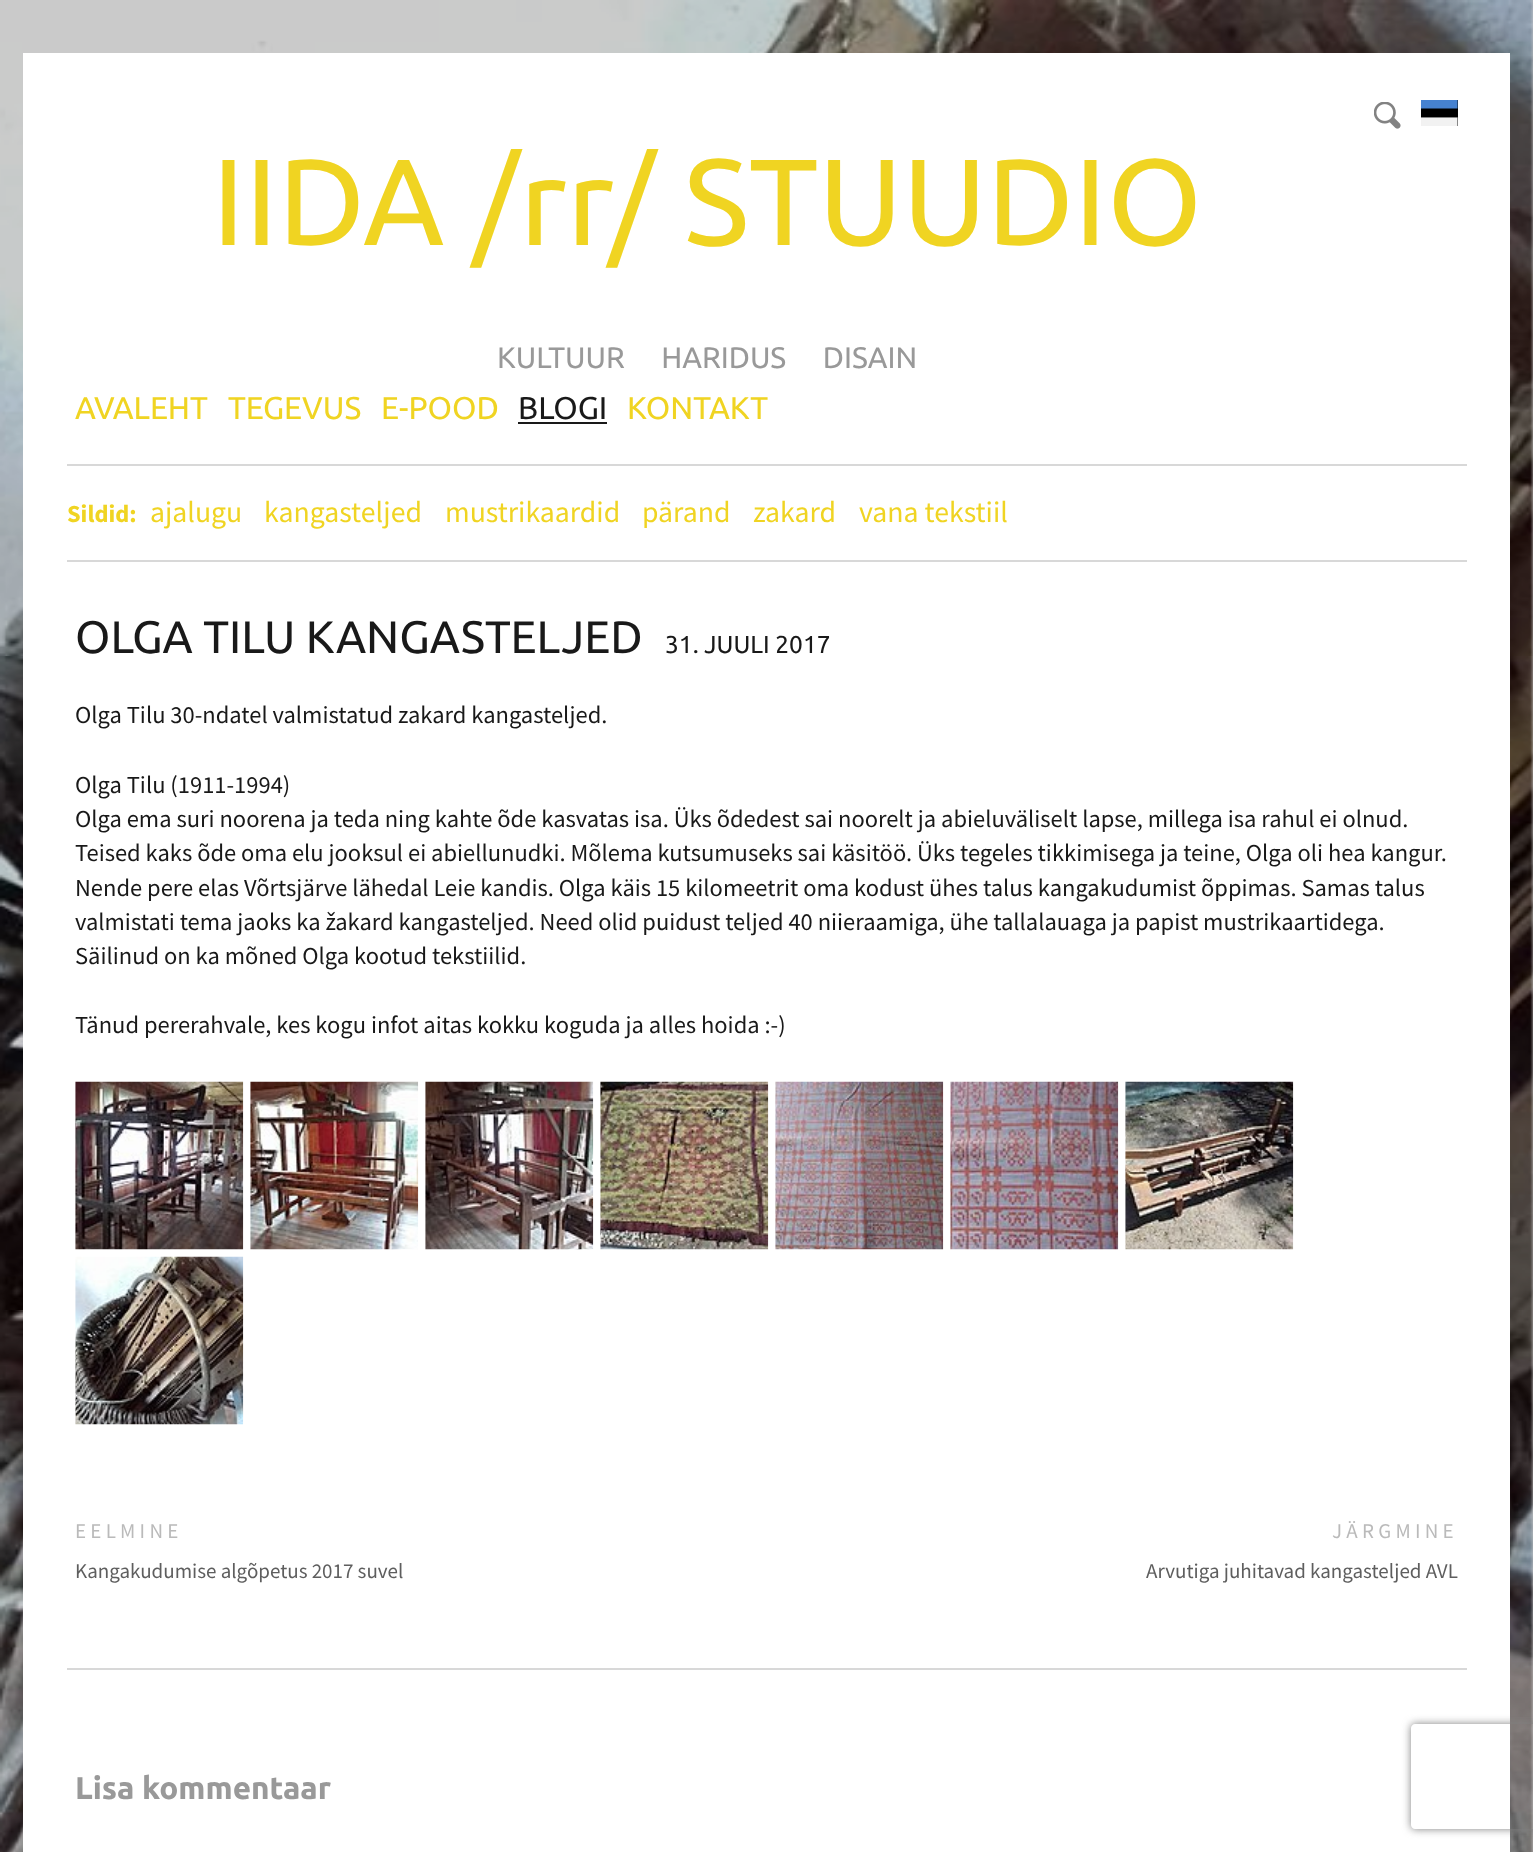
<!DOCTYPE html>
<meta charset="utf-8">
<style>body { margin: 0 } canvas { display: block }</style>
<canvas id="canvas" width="1533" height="1852"></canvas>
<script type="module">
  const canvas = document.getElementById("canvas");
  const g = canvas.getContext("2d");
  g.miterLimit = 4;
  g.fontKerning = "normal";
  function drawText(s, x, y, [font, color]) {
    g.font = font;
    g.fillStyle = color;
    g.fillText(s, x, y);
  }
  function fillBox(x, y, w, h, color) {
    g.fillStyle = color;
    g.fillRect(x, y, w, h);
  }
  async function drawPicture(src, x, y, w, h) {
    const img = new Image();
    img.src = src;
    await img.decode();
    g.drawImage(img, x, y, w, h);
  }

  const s1 = ["122.5px Ubuntu", "#F0D422"];
  const s2 = ["29.75px Ubuntu", "#999999"];
  const s3 = ["31.5px Ubuntu", "#F0D422"];
  const s4 = ["31.5px Ubuntu", "#191919"];
  const s5 = ["bold 24.5px Source Sans Pro", "#F0D422"];
  const s6 = ["29.75px Source Sans Pro", "#F0D422"];
  const s7 = ["45.5px Ubuntu", "#191919"];
  const s8 = ["24.5px Ubuntu", "#191919"];
  const s9 = ["24.5px Source Sans Pro", "#191919"];
  const s10 = ["21px Source Sans Pro", "#BABABA"];
  const s11 = ["21px Source Sans Pro", "#5E5E5E"];
  const s12 = ["bold 31.5px Ubuntu", "#999999"];

  fillBox(0, 0, 1533, 1852, "#CCCCCC");
  await drawPicture("pic1.png", 0, 0, 1533, 1852);
  fillBox(23, 53, 1487, 1799, "#FFFFFF");
  fillBox(67, 464, 1400, 2, "#D8D8D8");
  await drawPicture("pic2.png", 1374, 102, 27, 27);
  fillBox(1421, 100, 37, 26, "#000000");
  await drawPicture("pic3.png", 1421, 100, 37, 26);
  drawText("IIDA /rr/ STUUDIO", 212, 245, s1);
  drawText("KULTUUR  HARIDUS  DISAIN", 497, 368, s2);
  drawText("AVALEHT", 75, 419, s3);
  drawText("TEGEVUS", 228, 419, s3);
  drawText("E-POOD", 381, 419, s3);
  drawText("BLOGI", 518, 419, s4);
  fillBox(518, 422, 89, 2, "#191919");
  drawText("KONTAKT", 627, 419, s3);
  fillBox(67, 560, 1400, 2, "#D8D8D8");
  drawText("Sildid:", 67, 522, s5);
  drawText("ajalugu", 150, 522, s6);
  drawText("kangasteljed", 264, 522, s6);
  drawText("mustrikaardid", 445, 522, s6);
  drawText("pärand", 642, 522, s6);
  drawText("zakard", 753, 522, s6);
  drawText("vana tekstiil", 859, 522, s6);
  drawText("OLGA TILU KANGASTELJED", 75, 653, s7);
  drawText("31. JUULI 2017", 665, 653, s8);
  drawText("Olga Tilu 30-ndatel valmistatud zakard kangasteljed.", 75, 723, s9);
  drawText("Olga Tilu (1911-1994)", 75, 793, s9);
  drawText("Olga ema suri noorena ja teda ning kahte õde kasvatas isa. Üks õdedest sai noorelt ja abieluväliselt lapse, millega isa rahul ei olnud.", 75, 827, s9);
  drawText("Teised kaks õde oma elu jooksul ei abiellunudki. Mõlema kutsumuseks sai käsitöö. Üks tegeles tikkimisega ja teine, Olga oli hea kangur.", 75, 861, s9);
  drawText("Nende pere elas Võrtsjärve lähedal Leie kandis. Olga käis 15 kilomeetrit oma kodust ühes talus kangakudumist õppimas. Samas talus", 75, 896, s9);
  drawText("valmistati tema jaoks ka žakard kangasteljed. Need olid puidust teljed 40 niieraamiga, ühe tallalauaga ja papist mustrikaartidega.", 75, 930, s9);
  drawText("Säilinud on ka mõned Olga kootud tekstiilid.", 75, 964, s9);
  drawText("Tänud pererahvale, kes kogu infot aitas kokku koguda ja alles hoida :-)", 75, 1033, s9);
  await drawPicture("pic4.png", 75, 1081, 169, 169);
  await drawPicture("pic5.png", 250, 1081, 169, 169);
  await drawPicture("pic6.png", 425, 1081, 169, 169);
  await drawPicture("pic7.png", 600, 1081, 169, 169);
  await drawPicture("pic8.png", 775, 1081, 169, 169);
  await drawPicture("pic9.png", 950, 1081, 169, 169);
  await drawPicture("pic10.png", 1125, 1081, 169, 169);
  await drawPicture("pic11.png", 75, 1256, 169, 169);
  g.letterSpacing = "4.25px";
  drawText("EELMINE", 75, 1538, s10);
  g.letterSpacing = "0px";
  drawText("Kangakudumise algõpetus 2017 suvel", 75, 1578, s11);
  g.letterSpacing = "4.25px";
  drawText("JÄRGMINE", 1332, 1538, s10);
  g.letterSpacing = "0px";
  drawText("Arvutiga juhitavad kangasteljed AVL", 1146, 1578, s11);
  fillBox(67, 1668, 1400, 2, "#D8D8D8");
  drawText("Lisa kommentaar", 75, 1799, s12);
  g.save();
  g.beginPath();
  g.moveTo(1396, 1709);
  g.lineTo(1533, 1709);
  g.lineTo(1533, 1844);
  g.lineTo(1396, 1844);
  g.closePath();
  g.moveTo(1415, 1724);
  g.lineTo(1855, 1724);
  g.bezierCurveTo(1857, 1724, 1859, 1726, 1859, 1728);
  g.lineTo(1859, 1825);
  g.bezierCurveTo(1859, 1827, 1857, 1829, 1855, 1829);
  g.lineTo(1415, 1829);
  g.bezierCurveTo(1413, 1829, 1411, 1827, 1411, 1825);
  g.lineTo(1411, 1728);
  g.bezierCurveTo(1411, 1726, 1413, 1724, 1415, 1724);
  g.closePath();
  g.clip("evenodd");
  g.fillStyle = "#808080";
  g.filter = "blur(4.5px)";
  g.beginPath();
  g.roundRect(1411, 1724, 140, 105, 4);
  g.fill();
  g.filter = "none";
  g.restore();
</script>
